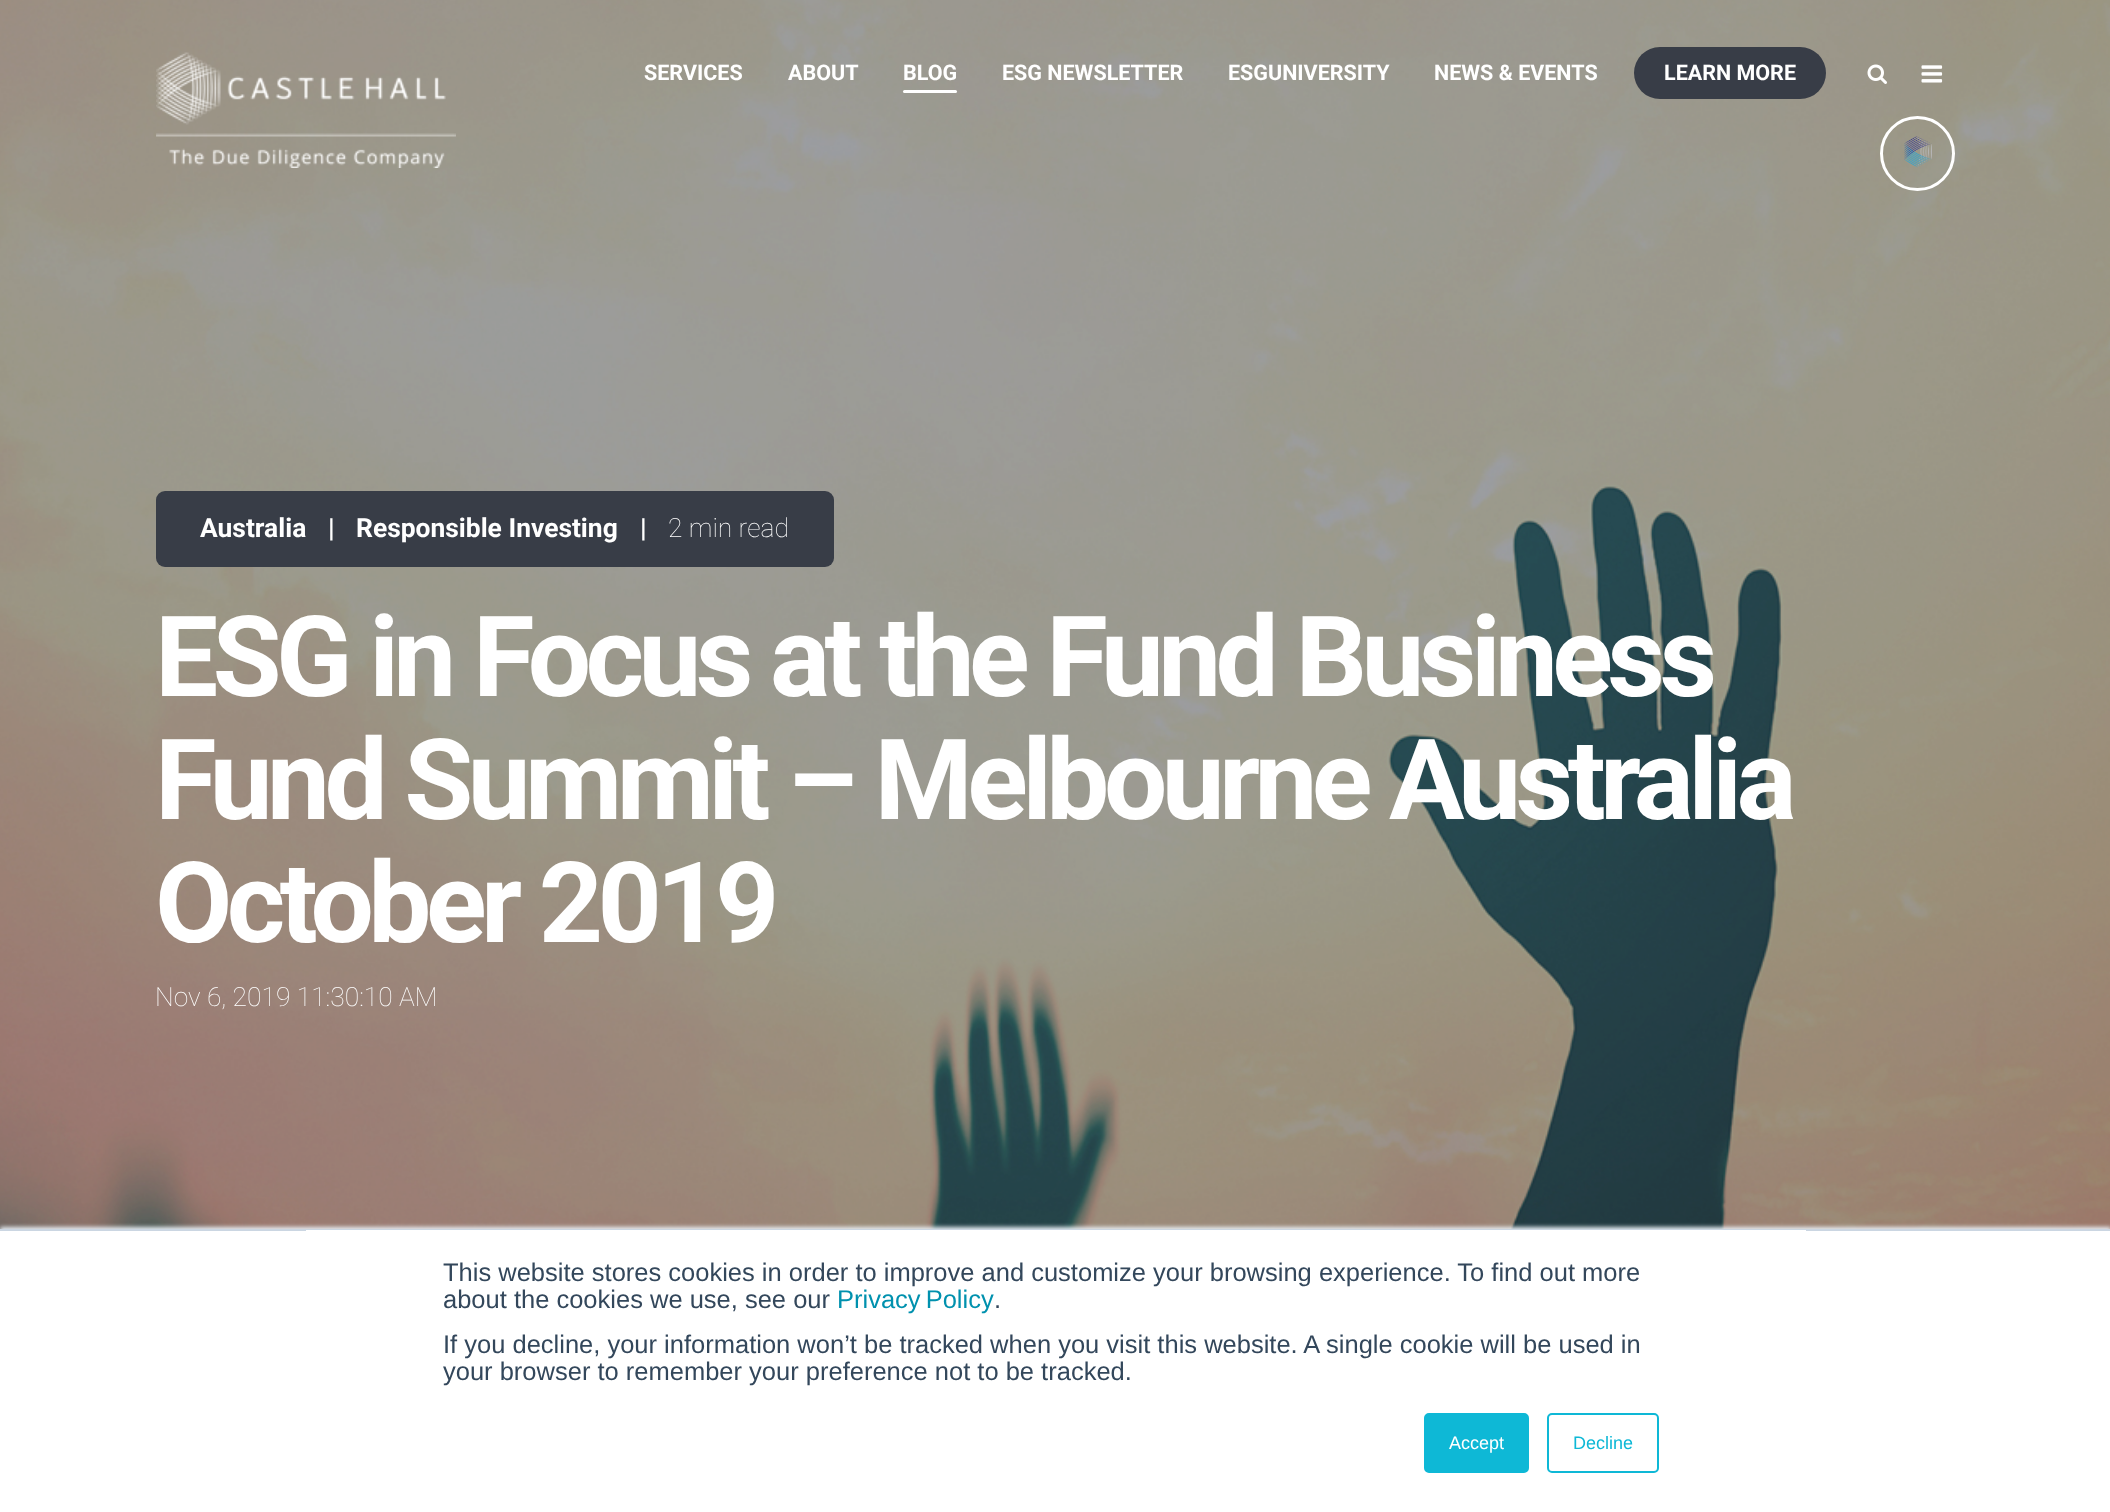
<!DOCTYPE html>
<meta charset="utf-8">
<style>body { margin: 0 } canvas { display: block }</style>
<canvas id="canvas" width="2110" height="1512"></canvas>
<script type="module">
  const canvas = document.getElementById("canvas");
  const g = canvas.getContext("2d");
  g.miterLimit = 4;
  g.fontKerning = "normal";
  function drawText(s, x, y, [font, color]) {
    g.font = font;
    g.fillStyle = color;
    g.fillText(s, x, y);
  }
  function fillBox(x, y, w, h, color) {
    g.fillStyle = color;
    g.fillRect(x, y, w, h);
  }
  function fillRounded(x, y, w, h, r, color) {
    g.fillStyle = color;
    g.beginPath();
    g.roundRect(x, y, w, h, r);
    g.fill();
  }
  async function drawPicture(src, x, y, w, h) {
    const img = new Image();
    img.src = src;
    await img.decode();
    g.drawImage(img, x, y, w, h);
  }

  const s1 = ["bold 21.5px Roboto", "#FFFFFF"];
  const s2 = ["bold 26.4px Roboto", "#FFFFFF"];
  const s3 = ["100 26.4px Roboto", "#FFFFFF"];
  const s4 = ["bold 112.25px Roboto", "#FFFFFF"];
  const s5 = ["25.5px Liberation Sans", "#33475B"];
  const s6 = ["25.5px Liberation Sans", "#0091AE"];
  const s7 = ["18px Liberation Sans", "#FFFFFF"];
  const s8 = ["18px Liberation Sans", "#0EB8D6"];

  fillBox(0, 0, 2110, 1512, "#FFFFFF");
  await drawPicture("pic1.png", 0, 0, 2110, 1229);
  await drawPicture("pic2.png", 156, 52, 300, 116);
  drawText("SERVICES", 644, 80, s1);
  drawText("ABOUT", 788, 80, s1);
  drawText("BLOG", 903, 80, s1);
  fillRounded(903, 90, 54, 3, 1.5, "#FFFFFF");
  drawText("ESG NEWSLETTER", 1002, 80, s1);
  drawText("ESGUNIVERSITY", 1228, 80, s1);
  drawText("NEWS & EVENTS", 1434, 80, s1);
  fillRounded(1634, 47, 192, 52, 26, "#383D47");
  drawText("LEARN MORE", 1664, 80, s1);
  await drawPicture("pic3.png", 1867, 64, 20, 20);
  await drawPicture("pic4.png", 1921, 65, 22, 18);
  g.beginPath();
  g.arc(1917.5, 153.5, 36, 0, Math.PI * 2);
  g.strokeStyle = "#FFFFFF";
  g.lineWidth = 3;
  g.stroke();
  await drawPicture("pic5.png", 1904, 136, 28, 32);
  fillRounded(156, 491, 678, 76, 9, "#383D47");
  drawText("Australia", 200, 537, s2);
  drawText("|", 328, 537, s2);
  drawText("Responsible Investing", 356, 537, s2);
  drawText("|", 640, 537, s2);
  drawText("2 min read", 668, 537, s3);
  g.letterSpacing = "-5.6px";
  drawText("ESG in Focus at the Fund Business", 155, 696, s4);
  drawText("Fund Summit – Melbourne Australia", 155, 819, s4);
  drawText("October 2019", 155, 942, s4);
  g.letterSpacing = "0px";
  drawText("Nov 6, 2019 11:30:10 AM", 155, 1006, s3);
  g.fillStyle = "#EAF0F6";
  g.filter = "blur(2px)";
  g.beginPath();
  g.rect(0, 1227, 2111, 284);
  g.fill();
  g.filter = "none";
  fillBox(0, 1231, 2110, 281, "#FFFFFF");
  fillBox(0, 1229, 2110, 2, "#CBD6E2");
  fillBox(306, 1230, 1500, 1, "#FFFFFF");
  drawText("This website stores cookies in order to improve and customize your browsing experience. To find out more", 443, 1281, s5);
  drawText("about the cookies we use, see our", 443, 1308, s5);
  g.wordSpacing = "-2px";
  drawText("Privacy Policy", 837, 1308, s6);
  g.wordSpacing = "0px";
  drawText(".", 994, 1308, s5);
  drawText("If you decline, your information won’t be tracked when you visit this website. A single cookie will be used in", 443, 1353, s5);
  drawText("your browser to remember your preference not to be tracked.", 443, 1380, s5);
  g.fillStyle = "#0EB8D6";
  g.beginPath();
  g.roundRect(1425, 1414, 103, 58, 4);
  g.fill();
  g.strokeStyle = "#0EB8D6";
  g.lineWidth = 2;
  g.stroke();
  drawText("Accept", 1449, 1449, s7);
  g.beginPath();
  g.roundRect(1548, 1414, 110, 58, 4);
  g.stroke();
  drawText("Decline", 1573, 1449, s8);
</script>
